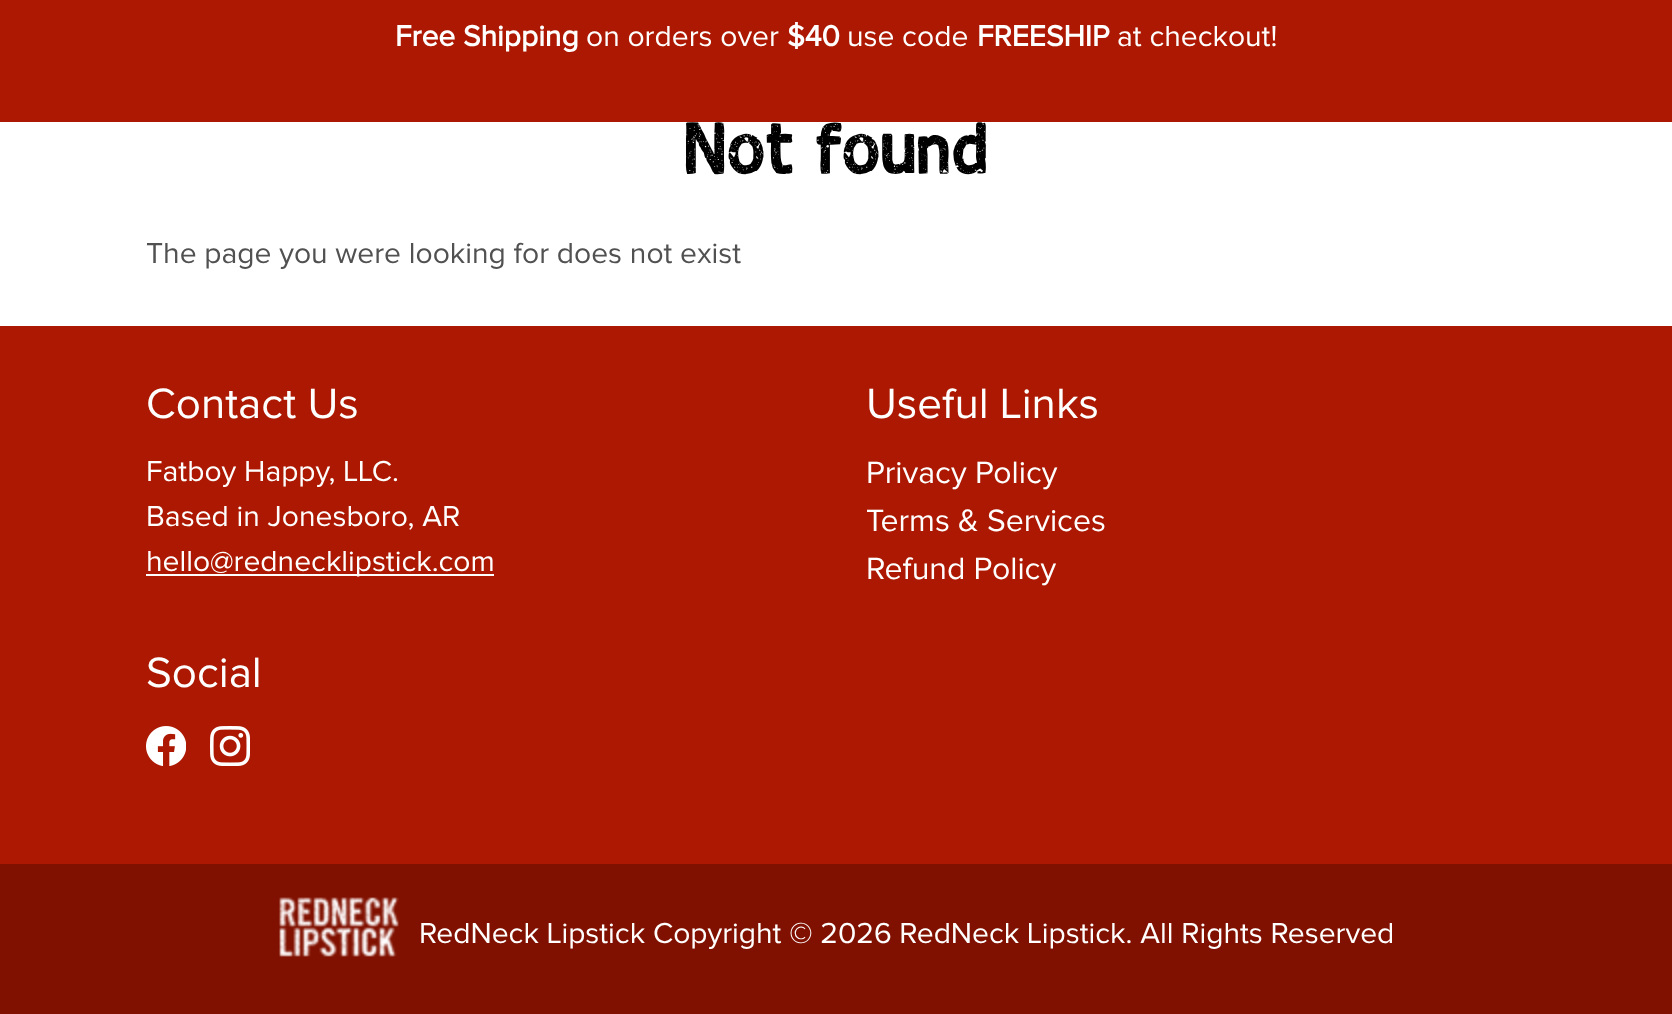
<!DOCTYPE html>
<meta charset="utf-8">
<style>body { margin: 0 } canvas { display: block }</style>
<canvas id="canvas" width="1672" height="1014"></canvas>
<script type="module">
  const canvas = document.getElementById("canvas");
  const g = canvas.getContext("2d");
  g.miterLimit = 4;
  g.fontKerning = "normal";
  function drawText(s, x, y, [font, color]) {
    g.font = font;
    g.fillStyle = color;
    g.fillText(s, x, y);
  }
  function fillBox(x, y, w, h, color) {
    g.fillStyle = color;
    g.fillRect(x, y, w, h);
  }
  async function drawPicture(src, x, y, w, h) {
    const img = new Image();
    img.src = src;
    await img.decode();
    g.drawImage(img, x, y, w, h);
  }

  const s1 = ["bold 30px Proxima Nova", "#FFFFFF"];
  const s2 = ["30px Proxima Nova", "#FFFFFF"];
  const s3 = ["72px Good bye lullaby", "#000000"];
  const s4 = ["30px Proxima Nova", "#515151"];
  const s5 = ["44px Proxima Nova", "#FFFFFF"];
  const s6 = ["32px Proxima Nova", "#FFFFFF"];

  fillBox(0, 0, 1672, 1014, "#FFFFFF");
  fillBox(0, 0, 1672, 122, "#AC1801");
  drawText("Free Shipping", 395, 46, s1);
  drawText("on orders over", 586, 46, s2);
  drawText("$40", 787, 46, s1);
  drawText("use code", 847, 46, s2);
  drawText("FREESHIP", 977, 46, s1);
  drawText("at checkout!", 1117, 46, s2);
  drawText("Not found", 683, 174, s3);
  drawText("The page you were looking for does not exist", 146, 263, s4);
  fillBox(0, 326, 1672, 538, "#AC1801");
  drawText("Contact Us", 146, 418, s5);
  drawText("Fatboy Happy, LLC.", 146, 481, s2);
  drawText("Based in Jonesboro, AR", 146, 526, s2);
  fillBox(146, 574, 348, 2, "#FFFFFF");
  drawText("hello@rednecklipstick.com", 146, 571, s2);
  drawText("Useful Links", 866, 418, s5);
  drawText("Privacy Policy", 866, 483, s6);
  drawText("Terms & Services", 866, 531, s6);
  drawText("Refund Policy", 866, 579, s6);
  drawText("Social", 146, 687, s5);
  await drawPicture("pic1.png", 146, 726, 40, 40);
  await drawPicture("pic2.png", 210, 726, 40, 40);
  fillBox(0, 864, 1672, 150, "#801100");
  await drawPicture("pic3.png", 279, 897, 120, 60);
  drawText("RedNeck Lipstick Copyright © 2026 RedNeck Lipstick. All Rights Reserved", 419, 943, s2);
</script>
